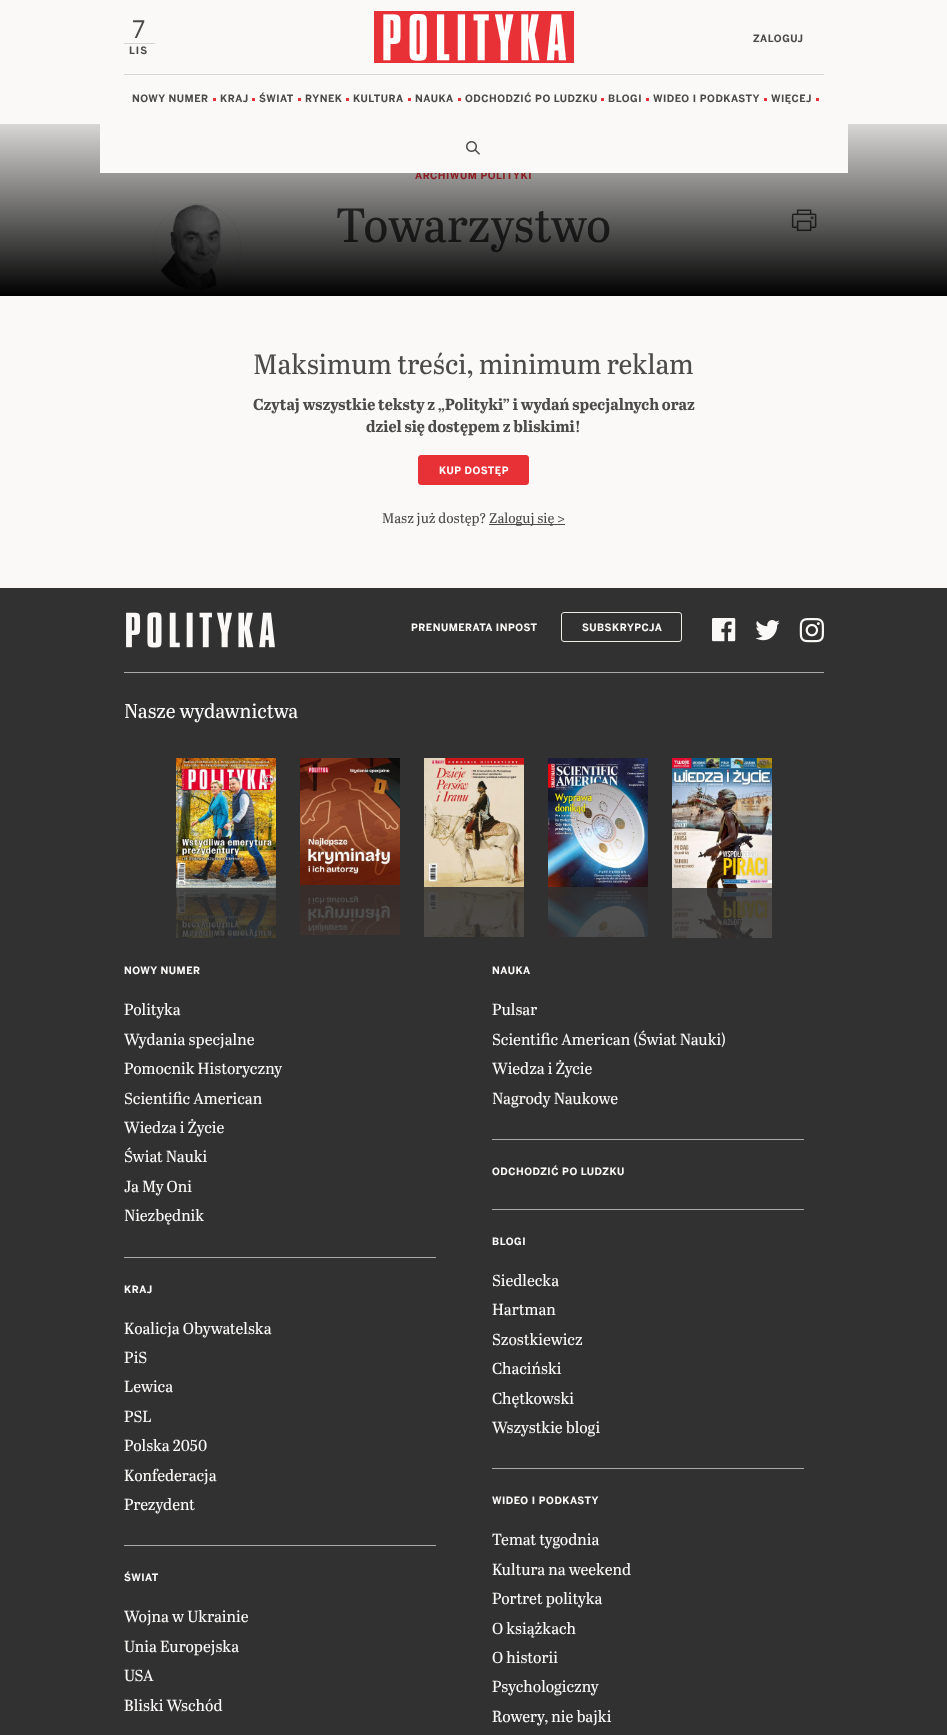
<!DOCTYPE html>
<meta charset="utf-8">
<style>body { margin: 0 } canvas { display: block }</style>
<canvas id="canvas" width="947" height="1735"></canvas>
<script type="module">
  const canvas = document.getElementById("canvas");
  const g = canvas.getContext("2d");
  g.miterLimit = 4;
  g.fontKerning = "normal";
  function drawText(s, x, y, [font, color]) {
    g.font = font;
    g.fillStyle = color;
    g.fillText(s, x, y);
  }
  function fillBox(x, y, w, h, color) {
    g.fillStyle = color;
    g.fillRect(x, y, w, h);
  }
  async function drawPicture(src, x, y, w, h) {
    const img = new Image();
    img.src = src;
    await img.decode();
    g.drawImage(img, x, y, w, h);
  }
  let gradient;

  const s1 = ["24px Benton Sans", "#4B4B4B"];
  const s2 = ["bold 10px Benton Sans", "#4B4B4B"];
  const s3 = ["bold 10px Benton Sans", "#E73137"];
  const s4 = ["48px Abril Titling", "#4B4B4B"];
  const s5 = ["28px Abril Titling", "#4B4B4B"];
  const s6 = ["bold 16px Abril Titling", "#4B4B4B"];
  const s7 = ["bold 10px Benton Sans", "#FFFFFF"];
  const s8 = ["14px Abril Titling", "#4B4B4B"];
  const s9 = ["bold 10px Benton Sans", "#FCFAF9"];
  const s10 = ["20px Abril Titling", "#FCFAF9"];
  const s11 = ["16px Abril Titling", "#FCFAF9"];

  fillBox(0, 0, 947, 1735, "#FAF9F7");
  fillBox(0, 124, 947, 1, "#D7D6D5");
  fillBox(124, 43, 31, 1, "#D7D6D5");
  g.letterSpacing = "0.5px";
  drawText("7", 132, 38, s1);
  g.letterSpacing = "1px";
  drawText("LIS", 129, 54, s2);
  await drawPicture("pic1.png", 374, 11, 200, 52);
  g.letterSpacing = "0.5px";
  drawText("ZALOGUJ", 753, 42, s2);
  drawText("ARCHIWUM POLITYKI", 415, 179, s3);
  g.beginPath();
  g.arc(197, 247, 43.5, 0, Math.PI * 2);
  g.strokeStyle = "#ECECEC";
  g.stroke();
  await drawPicture("pic3.png", 160, 204, 62, 86);
  g.letterSpacing = "0px";
  drawText("Towarzystwo", 336, 242, s4);
  await drawPicture("pic4.png", 791, 209, 26, 23);
  gradient = g.createLinearGradient(474, 296, 474, 96);
  gradient.addColorStop(0, "#000000");
  gradient.addColorStop(1, "rgba(0, 0, 0, 0)");
  g.fillStyle = gradient;
  g.fillRect(0, 125, 947, 171);
  fillBox(100, 124, 748, 49, "#FAF9F7");
  fillBox(124, 74, 700, 1, "#D7D6D5");
  g.letterSpacing = "0.5px";
  drawText("NOWY NUMER", 132, 102, s2);
  fillBox(213, 98, 3, 3, "#E73137");
  drawText("KRAJ", 220, 102, s2);
  fillBox(252, 98, 3, 3, "#E73137");
  drawText("ŚWIAT", 259, 102, s2);
  fillBox(298, 98, 3, 3, "#E73137");
  drawText("RYNEK", 305, 102, s2);
  fillBox(346, 98, 3, 3, "#E73137");
  drawText("KULTURA", 353, 102, s2);
  fillBox(408, 98, 3, 3, "#E73137");
  drawText("NAUKA", 415, 102, s2);
  fillBox(458, 98, 3, 3, "#E73137");
  drawText("ODCHODZIĆ PO LUDZKU", 465, 102, s2);
  fillBox(601, 98, 3, 3, "#E73137");
  drawText("BLOGI", 608, 102, s2);
  fillBox(646, 98, 3, 3, "#E73137");
  drawText("WIDEO I PODKASTY", 653, 102, s2);
  fillBox(764, 98, 3, 3, "#E73137");
  drawText("WIĘCEJ", 771, 102, s2);
  fillBox(816, 98, 3, 3, "#E73137");
  await drawPicture("pic2.png", 466, 141, 14, 14);
  g.letterSpacing = "0px";
  drawText("Maksimum treści, minimum reklam", 253, 374, s5);
  drawText("Czytaj wszystkie teksty z „Polityki” i wydań specjalnych oraz", 253, 410, s6);
  drawText("dziel się dostępem z bliskimi!", 366, 432, s6);
  g.fillStyle = "#E73137";
  g.beginPath();
  g.roundRect(418.5, 455.5, 110, 29, 2.5);
  g.fill();
  g.strokeStyle = "#E73137";
  g.stroke();
  g.letterSpacing = "0.5px";
  drawText("KUP DOSTĘP", 439, 474, s7);
  g.letterSpacing = "0px";
  drawText("Masz już dostęp?", 382, 523, s8);
  fillBox(489, 524, 76, 1, "#4B4B4B");
  drawText("Zaloguj się >", 489, 523, s8);
  fillBox(0, 588, 947, 1147, "#313131");
  fillBox(124, 672, 700, 1, "#AAA9A7");
  await drawPicture("pic5.png", 126, 612, 149, 36);
  g.letterSpacing = "0.5px";
  drawText("PRENUMERATA INPOST", 411, 631, s9);
  g.beginPath();
  g.roundRect(561.5, 612.5, 120, 29, 2.5);
  g.strokeStyle = "#EFECE7";
  g.stroke();
  drawText("SUBSKRYPCJA", 582, 631, s9);
  await drawPicture("pic6.png", 712, 618, 24, 24);
  await drawPicture("pic7.png", 755, 620, 25, 21);
  await drawPicture("pic8.png", 799, 618, 25, 25);
  g.letterSpacing = "0px";
  drawText("Nasze wydawnictwa", 124, 718, s10);
  await drawPicture("pic9.png", 176, 758, 100, 130);
  await drawPicture("pic10.png", 176, 888, 100, 50);
  await drawPicture("pic11.png", 300, 758, 100, 127);
  await drawPicture("pic12.png", 300, 885, 100, 50);
  await drawPicture("pic13.png", 424, 758, 100, 129);
  await drawPicture("pic14.png", 424, 887, 100, 50);
  await drawPicture("pic15.png", 548, 758, 100, 129);
  await drawPicture("pic16.png", 548, 887, 100, 50);
  await drawPicture("pic17.png", 672, 758, 100, 130);
  await drawPicture("pic18.png", 672, 888, 100, 50);
  g.letterSpacing = "0.5px";
  drawText("NOWY NUMER", 124, 974, s9);
  g.letterSpacing = "0px";
  drawText("Polityka", 124, 1015, s11);
  drawText("Wydania specjalne", 124, 1045, s11);
  drawText("Pomocnik Historyczny", 124, 1074, s11);
  drawText("Scientific American", 124, 1104, s11);
  drawText("Wiedza i Życie", 124, 1133, s11);
  drawText("Świat Nauki", 124, 1162, s11);
  drawText("Ja My Oni", 124, 1192, s11);
  drawText("Niezbędnik", 124, 1221, s11);
  g.letterSpacing = "0.5px";
  drawText("NAUKA", 492, 974, s9);
  g.letterSpacing = "0px";
  drawText("Pulsar", 492, 1015, s11);
  drawText("Scientific American (Świat Nauki)", 492, 1045, s11);
  drawText("Wiedza i Życie", 492, 1074, s11);
  drawText("Nagrody Naukowe", 492, 1104, s11);
  fillBox(492, 1139, 312, 1, "#AAA9A7");
  g.letterSpacing = "0.5px";
  drawText("ODCHODZIĆ PO LUDZKU", 492, 1175, s9);
  fillBox(124, 1257, 312, 1, "#AAA9A7");
  drawText("KRAJ", 124, 1293, s9);
  g.letterSpacing = "0px";
  drawText("Koalicja Obywatelska", 124, 1334, s11);
  drawText("PiS", 124, 1363, s11);
  drawText("Lewica", 124, 1392, s11);
  drawText("PSL", 124, 1422, s11);
  drawText("Polska 2050", 124, 1451, s11);
  drawText("Konfederacja", 124, 1481, s11);
  drawText("Prezydent", 124, 1510, s11);
  fillBox(492, 1209, 312, 1, "#AAA9A7");
  g.letterSpacing = "0.5px";
  drawText("BLOGI", 492, 1245, s9);
  g.letterSpacing = "0px";
  drawText("Siedlecka", 492, 1286, s11);
  drawText("Hartman", 492, 1315, s11);
  drawText("Szostkiewicz", 492, 1345, s11);
  drawText("Chaciński", 492, 1374, s11);
  drawText("Chętkowski", 492, 1404, s11);
  drawText("Wszystkie blogi", 492, 1433, s11);
  fillBox(124, 1545, 312, 1, "#AAA9A7");
  g.letterSpacing = "0.5px";
  drawText("ŚWIAT", 124, 1581, s9);
  g.letterSpacing = "0px";
  drawText("Wojna w Ukrainie", 124, 1622, s11);
  drawText("Unia Europejska", 124, 1652, s11);
  drawText("USA", 124, 1681, s11);
  drawText("Bliski Wschód", 124, 1711, s11);
  fillBox(492, 1468, 312, 1, "#AAA9A7");
  g.letterSpacing = "0.5px";
  drawText("WIDEO I PODKASTY", 492, 1504, s9);
  g.letterSpacing = "0px";
  drawText("Temat tygodnia", 492, 1545, s11);
  drawText("Kultura na weekend", 492, 1575, s11);
  drawText("Portret polityka", 492, 1604, s11);
  drawText("O książkach", 492, 1634, s11);
  drawText("O historii", 492, 1663, s11);
  drawText("Psychologiczny", 492, 1692, s11);
  drawText("Rowery, nie bajki", 492, 1722, s11);
</script>
